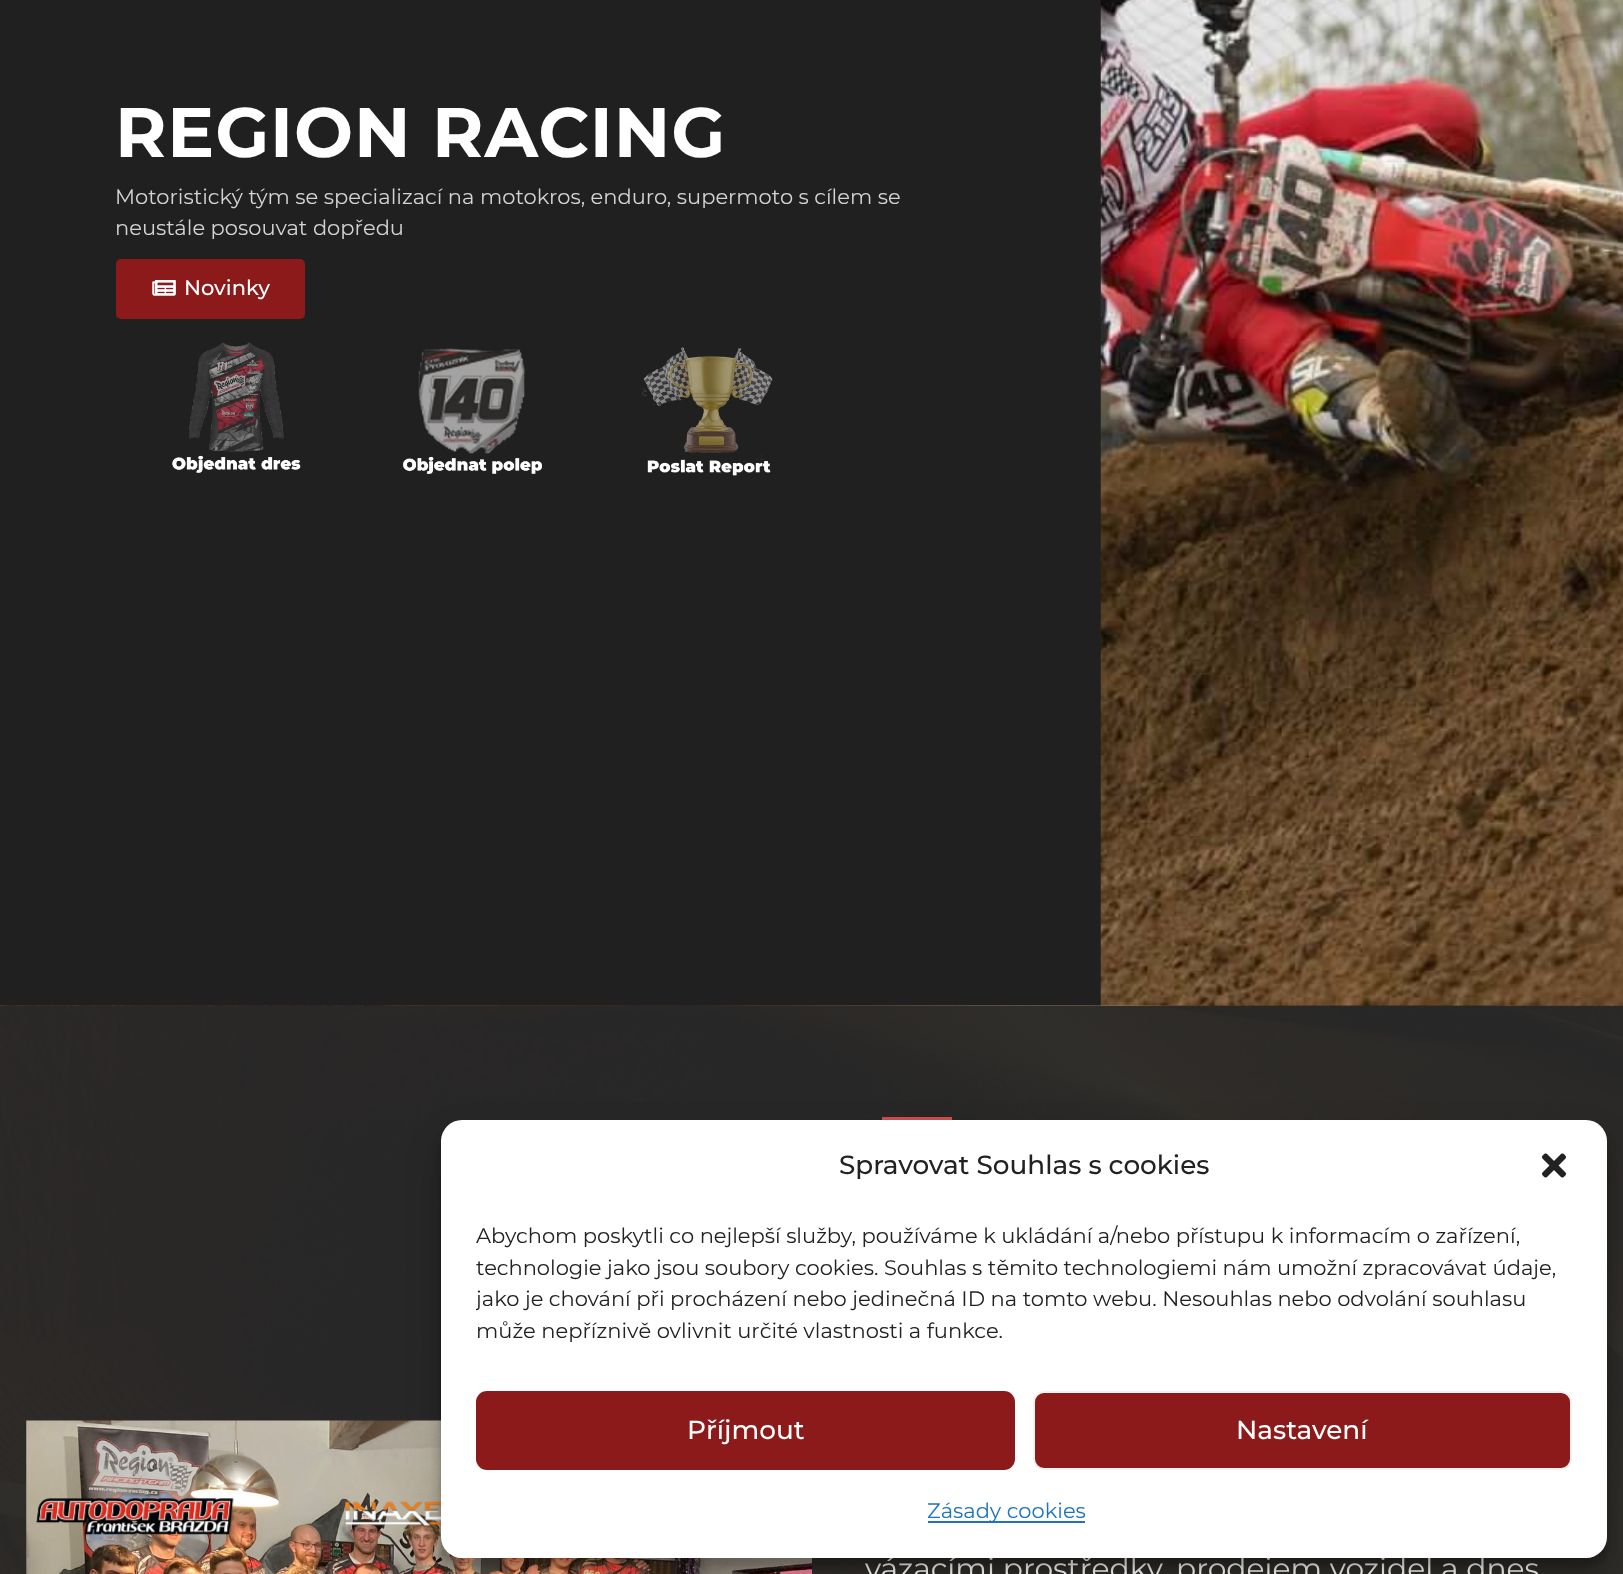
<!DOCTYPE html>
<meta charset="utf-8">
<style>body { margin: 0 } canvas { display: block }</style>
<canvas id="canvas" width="1623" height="1574"></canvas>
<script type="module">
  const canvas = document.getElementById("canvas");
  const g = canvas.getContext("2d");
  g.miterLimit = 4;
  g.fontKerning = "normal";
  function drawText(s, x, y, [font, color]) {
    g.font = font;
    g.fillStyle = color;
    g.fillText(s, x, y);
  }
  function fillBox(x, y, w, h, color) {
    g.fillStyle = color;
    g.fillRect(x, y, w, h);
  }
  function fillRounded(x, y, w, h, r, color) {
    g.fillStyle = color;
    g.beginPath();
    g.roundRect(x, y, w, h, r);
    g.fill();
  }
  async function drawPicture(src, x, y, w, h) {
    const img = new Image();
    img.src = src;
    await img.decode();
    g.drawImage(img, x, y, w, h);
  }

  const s1 = ["bold 70px Montserrat", "#FFFFFF"];
  const s2 = ["21px Montserrat", "#D3D3D3"];
  const s3 = ["500 21px Montserrat", "#FFFFFF"];
  const s4 = ["29.75px Montserrat", "#FFFFFF"];
  const s5 = ["500 26.25px Montserrat", "#222222"];
  const s6 = ["21px Montserrat", "#222222"];
  const s7 = ["500 26.25px Montserrat", "#FFFFFF"];
  const s8 = ["21px Montserrat", "#1E73BE"];

  fillBox(0, 0, 1623, 1574, "#202020");
  g.letterSpacing = "0.9px";
  drawText("REGION RACING", 115, 157, s1);
  g.letterSpacing = "0px";
  drawText("Motoristický tým se specializací na motokros, enduro, supermoto s cílem se", 115, 204, s2);
  drawText("neustále posouvat dopředu", 115, 235, s2);
  fillRounded(116, 259, 189, 60, 5, "#8D1A1A");
  await drawPicture("pic1.png", 152, 280, 24, 16);
  drawText("Novinky", 184, 295, s3);
  await drawPicture("pic2.png", 172, 342, 129, 131);
  await drawPicture("pic3.png", 403, 348, 139, 126);
  await drawPicture("pic4.png", 642, 347, 131, 129);
  await drawPicture("pic5.png", 1100, 0, 523, 1006);
  await drawPicture("pic6.png", 0, 1005, 1623, 569);
  await drawPicture("pic7.png", 26, 1420, 786, 154);
  fillBox(882, 1117, 70, 3, "#D04D4D");
  drawText("vázacími prostředky, prodejem vozidel a dnes", 865, 1579, s4);
  await drawPicture("pic8.png", 36, 1498, 198, 37);
  await drawPicture("pic9.png", 344, 1501, 97, 26);
  g.fillStyle = "rgba(0, 0, 0, 0.23)";
  g.filter = "blur(5px)";
  g.beginPath();
  g.roundRect(441, 1131, 1166, 437, 21);
  g.fill();
  g.filter = "none";
  g.fillStyle = "rgba(0, 0, 0, 0.19)";
  g.filter = "blur(17.5px)";
  g.beginPath();
  g.roundRect(441, 1138, 1166, 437, 21);
  g.fill();
  g.filter = "none";
  fillRounded(441, 1120, 1166, 438, 21, "#FFFFFF");
  drawText("Spravovat Souhlas s cookies", 839, 1174, s5);
  await drawPicture("pic10.png", 1542, 1153, 24, 25);
  drawText("Abychom poskytli co nejlepší služby, používáme k ukládání a/nebo přístupu k informacím o zařízení,", 476, 1243, s6);
  drawText("technologie jako jsou soubory cookies. Souhlas s těmito technologiemi nám umožní zpracovávat údaje,", 476, 1275, s6);
  g.save();
  g.beginPath();
  g.rect(476, 1222, 1096, 134);
  g.clip();
  drawText("jako je chování při procházení nebo jedinečná ID na tomto webu. Nesouhlas nebo odvolání souhlasu", 476, 1306, s6);
  g.restore();
  drawText("může nepříznivě ovlivnit určité vlastnosti a funkce.", 476, 1338, s6);
  g.fillStyle = "#8D1A1A";
  g.beginPath();
  g.roundRect(477, 1392, 537, 77, 10);
  g.fill();
  g.strokeStyle = "#8D1A1A";
  g.lineWidth = 2;
  g.stroke();
  drawText("Příjmout", 687, 1439, s7);
  g.fillStyle = "#8D1A1A";
  g.beginPath();
  g.roundRect(1034, 1392, 537, 77, 10);
  g.fill();
  g.strokeStyle = "#F2F2F2";
  g.stroke();
  drawText("Nastavení", 1236, 1439, s7);
  fillBox(928, 1521, 157, 2, "#1E73BE");
  drawText("Zásady cookies", 927, 1518, s8);
</script>
